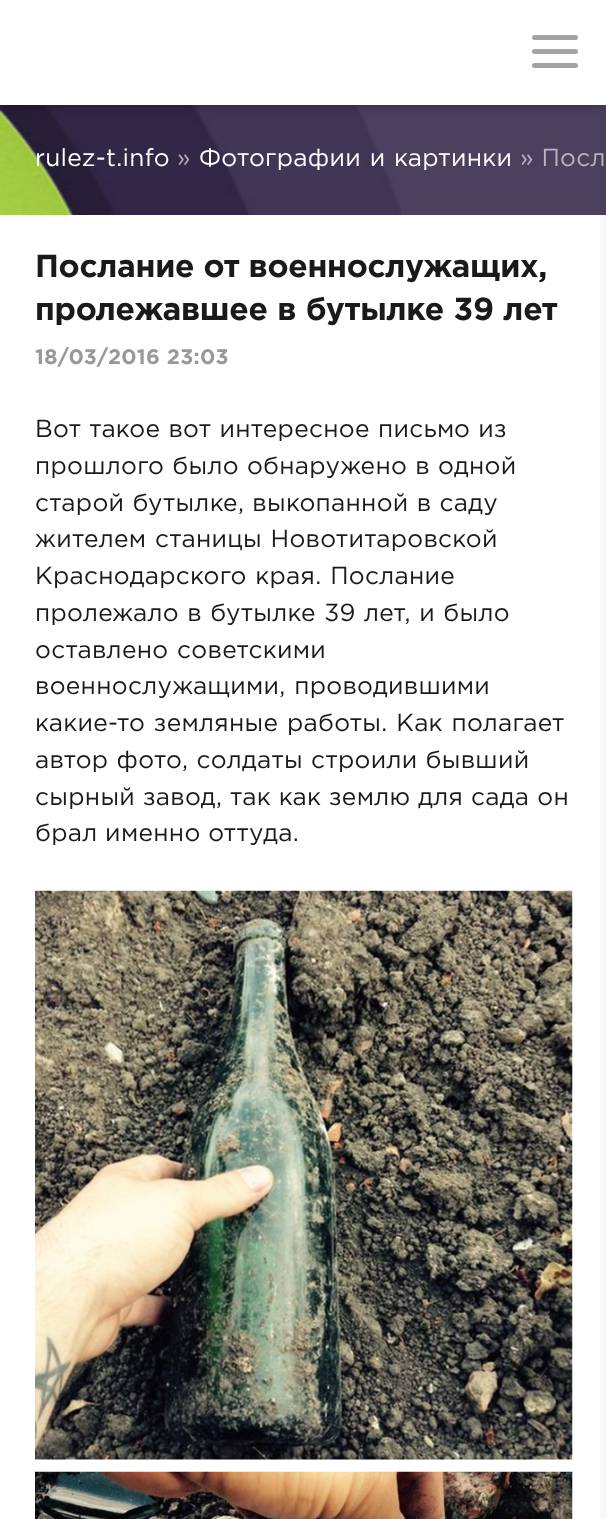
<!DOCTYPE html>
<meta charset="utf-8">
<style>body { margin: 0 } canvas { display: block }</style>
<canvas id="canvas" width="606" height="1519"></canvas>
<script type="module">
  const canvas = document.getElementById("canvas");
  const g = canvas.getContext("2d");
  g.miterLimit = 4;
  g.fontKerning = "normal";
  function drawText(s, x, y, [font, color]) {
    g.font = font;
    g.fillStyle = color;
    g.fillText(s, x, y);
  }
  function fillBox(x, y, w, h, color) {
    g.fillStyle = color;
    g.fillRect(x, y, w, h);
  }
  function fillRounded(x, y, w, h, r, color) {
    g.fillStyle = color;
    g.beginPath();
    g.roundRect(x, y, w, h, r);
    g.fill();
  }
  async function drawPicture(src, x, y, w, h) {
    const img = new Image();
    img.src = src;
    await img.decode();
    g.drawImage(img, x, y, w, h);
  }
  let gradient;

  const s1 = ["24.5px Gotham", "#FFFFFF"];
  const s2 = ["24.5px Gotham", "#ADA9B5"];
  const s3 = ["24.5px Gotham", "#B7B3BF"];
  const s4 = ["bold 31.8px Gotham", "#1A1A1A"];
  const s5 = ["bold 21px Gotham", "#999999"];
  const s6 = ["24.5px Gotham", "#1A1A1A"];

  fillBox(0, 0, 606, 1519, "#FFFFFF");
  fillBox(402, 105, 204, 110, "#4B415F");
  gradient = g.createLinearGradient(583, 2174, 606, 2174);
  gradient.addColorStop(0, "rgba(0, 0, 0, 0)");
  gradient.addColorStop(1, "rgba(0, 0, 0, 0.03)");
  g.fillStyle = gradient;
  g.fillRect(600, 105, 6, 1414);
  await drawPicture("pic1.png", 0, 105, 402, 110);
  g.fillStyle = "rgba(0, 0, 0, 0.2)";
  g.filter = "blur(5px)";
  g.beginPath();
  g.rect(0, 4, 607, 105);
  g.fill();
  g.filter = "none";
  fillBox(0, 0, 606, 105, "#FFFFFF");
  fillRounded(532, 35, 46, 5, 2.5, "#A3A3A3");
  fillRounded(532, 49, 46, 5, 2.5, "#A3A3A3");
  fillRounded(532, 63, 46, 5, 2.5, "#A3A3A3");
  g.letterSpacing = "0.3px";
  drawText("rulez-t.info", 35, 166, s1);
  drawText("»", 177, 166, s2);
  g.wordSpacing = "1px";
  drawText("Фотографии и картинки", 199, 166, s1);
  g.wordSpacing = "0px";
  drawText("» Посл", 520, 166, s3);
  g.letterSpacing = "-0.3px";
  drawText("Послание от военнослужащих,", 35, 277, s4);
  g.wordSpacing = "0.5px";
  drawText("пролежавшее в бутылке 39 лет", 35, 320, s4);
  g.letterSpacing = "0.3px";
  g.wordSpacing = "0px";
  drawText("18/03/2016 23:03", 35, 364, s5);
  g.wordSpacing = "0.5px";
  drawText("Вот такое вот интересное письмо из", 35, 437, s6);
  drawText("прошлого было обнаружено в одной", 35, 474, s6);
  drawText("старой бутылке, выкопанной в саду", 35, 511, s6);
  g.wordSpacing = "1px";
  drawText("жителем станицы Новотитаровской", 35, 547, s6);
  drawText("Краснодарского края. Послание", 35, 584, s6);
  g.wordSpacing = "0.75px";
  drawText("пролежало в бутылке 39 лет, и было", 35, 621, s6);
  g.wordSpacing = "1px";
  drawText("оставлено советскими", 35, 658, s6);
  drawText("военнослужащими, проводившими", 35, 694, s6);
  drawText("какие-то земляные работы. Как полагает", 35, 731, s6);
  g.wordSpacing = "0.5px";
  drawText("автор фото, солдаты строили бывший", 35, 768, s6);
  g.wordSpacing = "0.25px";
  drawText("сырный завод, так как землю для сада он", 35, 805, s6);
  g.wordSpacing = "0px";
  drawText("брал именно оттуда.", 35, 841, s6);
  await drawPicture("pic2.png", 35, 890, 538, 570);
  await drawPicture("pic3.png", 35, 1471, 538, 48);
</script>
